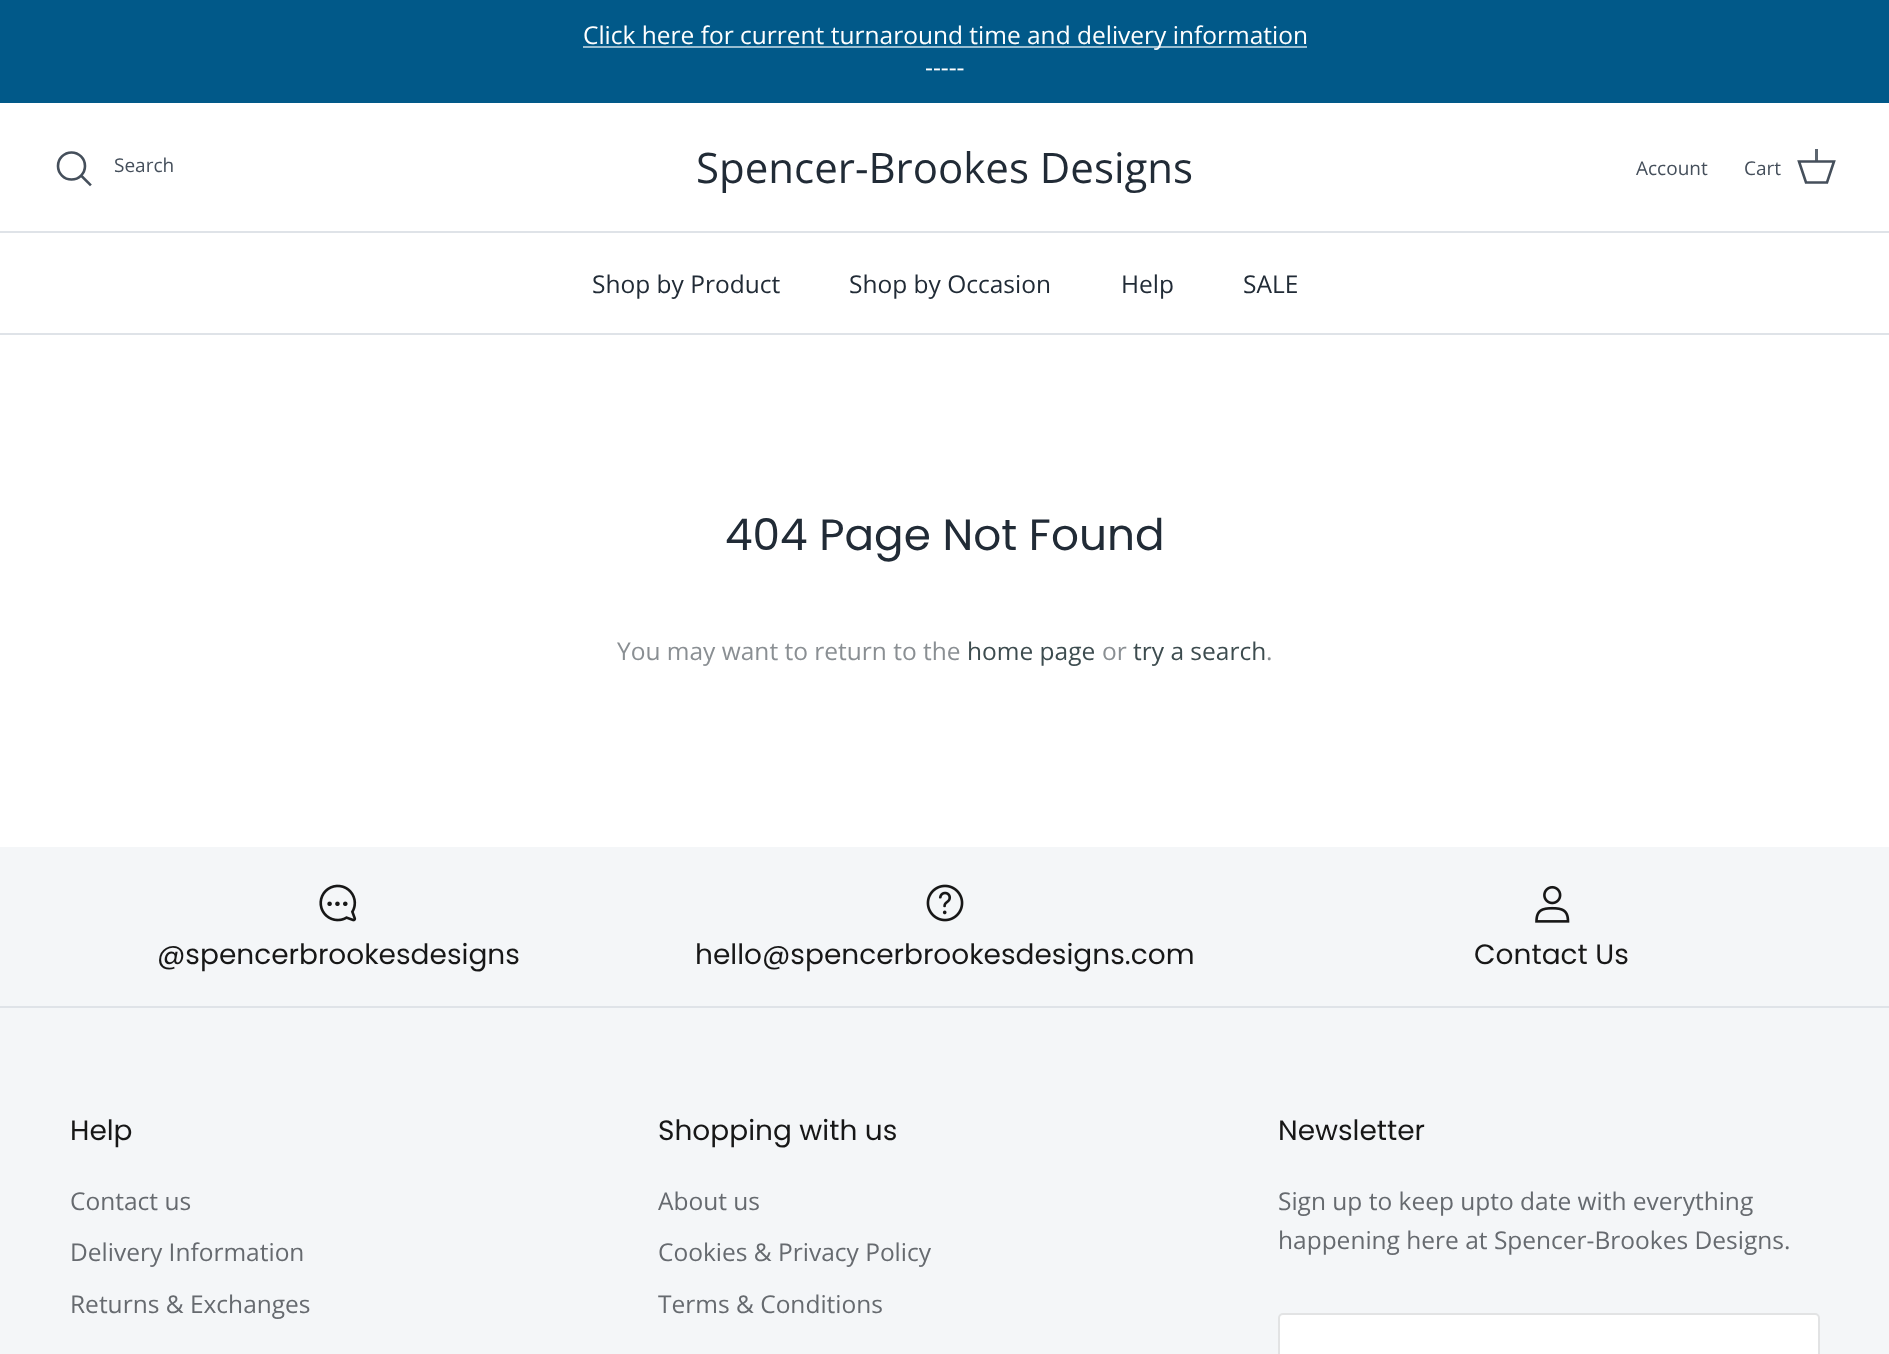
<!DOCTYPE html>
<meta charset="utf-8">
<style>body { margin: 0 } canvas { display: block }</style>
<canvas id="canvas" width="1889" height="1354"></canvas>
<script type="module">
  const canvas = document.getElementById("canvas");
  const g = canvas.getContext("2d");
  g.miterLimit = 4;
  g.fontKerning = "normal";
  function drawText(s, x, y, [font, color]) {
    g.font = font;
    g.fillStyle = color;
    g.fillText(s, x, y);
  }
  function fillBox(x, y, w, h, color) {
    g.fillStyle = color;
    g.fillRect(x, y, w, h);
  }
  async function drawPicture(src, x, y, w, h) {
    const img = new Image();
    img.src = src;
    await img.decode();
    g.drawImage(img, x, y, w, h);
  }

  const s1 = ["24.5px Open Sans", "#FFFFFF"];
  const s2 = ["19px Open Sans", "#454F5B"];
  const s3 = ["42px Open Sans", "#212B36"];
  const s4 = ["24.5px Open Sans", "#212B36"];
  const s5 = ["43.75px Poppins", "#212B36"];
  const s6 = ["24.5px Open Sans", "#8A8F93"];
  const s7 = ["24.5px Open Sans", "#3D4C4F"];
  const s8 = ["28px Poppins", "#171717"];
  const s9 = ["24.5px Open Sans", "#666A6F"];

  fillBox(0, 0, 1889, 1354, "#FFFFFF");
  fillBox(0, 0, 1889, 103, "#015989");
  fillBox(583, 46, 724, 2, "#99BDD0");
  drawText("Click here for current turnaround time and delivery information", 583, 44, s1);
  drawText("-----", 925, 76, s1);
  fillBox(0, 231, 1889, 2, "#DFE3E8");
  g.beginPath();
  g.arc(71.5, 166, 13.5, 0, Math.PI * 2);
  g.strokeStyle = "#454F5B";
  g.lineWidth = 2.6;
  g.stroke();
  drawText("Search", 114, 172, s2);
  g.beginPath();
  g.moveTo(82, 176.5);
  g.lineTo(90, 184.5);
  g.lineCap = "square";
  g.stroke();
  drawText("Spencer-Brookes Designs", 696, 183, s3);
  drawText("Account", 1636, 175, s2);
  drawText("Cart", 1744, 175, s2);
  g.beginPath();
  g.moveTo(1799, 161.5);
  g.lineTo(1834, 161.5);
  g.lineTo(1827, 182.5);
  g.lineTo(1806, 182.5);
  g.closePath();
  g.lineCap = "butt";
  g.stroke();
  fillBox(1815, 149, 3, 13, "rgba(69, 79, 91, 0.87)");
  fillBox(0, 333, 1889, 2, "#DFE3E8");
  drawText("Shop by Product", 592, 293, s4);
  drawText("Shop by Occasion", 849, 293, s4);
  drawText("Help", 1121, 293, s4);
  drawText("SALE", 1243, 293, s4);
  drawText("404 Page Not Found", 725, 550, s5);
  drawText("You may want to return to the", 617, 660, s6);
  drawText("home page", 967, 660, s7);
  drawText("or", 1102, 660, s6);
  drawText("try a search", 1133, 660, s7);
  drawText(".", 1266, 660, s6);
  fillBox(0, 847, 1889, 507, "#F4F6F8");
  await drawPicture("pic1.png", 319, 884, 38, 38);
  drawText("@spencerbrookesdesigns", 157, 964, s8);
  await drawPicture("pic2.png", 926, 884, 38, 38);
  drawText("hello@spencerbrookesdesigns.com", 695, 964, s8);
  await drawPicture("pic3.png", 1535, 885, 35, 38);
  drawText("Contact Us", 1474, 964, s8);
  fillBox(0, 1006, 1889, 2, "#DFE3E8");
  drawText("Help", 70, 1140, s8);
  drawText("Contact us", 70, 1210, s9);
  drawText("Delivery Information", 70, 1261, s9);
  drawText("Returns & Exchanges", 70, 1313, s9);
  drawText("Shopping with us", 658, 1140, s8);
  drawText("About us", 658, 1210, s9);
  drawText("Cookies & Privacy Policy", 658, 1261, s9);
  drawText("Terms & Conditions", 658, 1313, s9);
  drawText("Newsletter", 1278, 1140, s8);
  drawText("Sign up to keep upto date with everything", 1278, 1210, s9);
  drawText("happening here at Spencer-Brookes Designs.", 1278, 1249, s9);
  g.fillStyle = "#FFFFFF";
  g.beginPath();
  g.roundRect(1279, 1314, 540, 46, 4);
  g.fill();
  g.strokeStyle = "#E2E3E4";
  g.lineWidth = 2;
  g.stroke();
</script>
